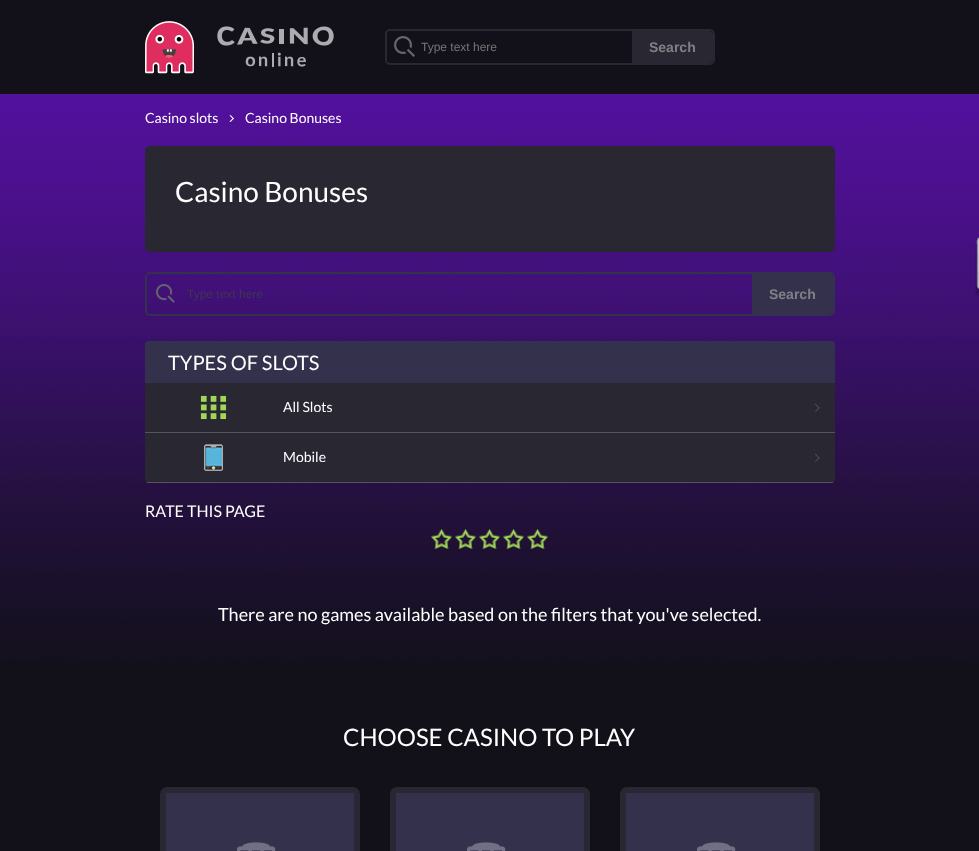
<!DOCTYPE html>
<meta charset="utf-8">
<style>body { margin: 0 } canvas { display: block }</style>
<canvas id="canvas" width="979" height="851"></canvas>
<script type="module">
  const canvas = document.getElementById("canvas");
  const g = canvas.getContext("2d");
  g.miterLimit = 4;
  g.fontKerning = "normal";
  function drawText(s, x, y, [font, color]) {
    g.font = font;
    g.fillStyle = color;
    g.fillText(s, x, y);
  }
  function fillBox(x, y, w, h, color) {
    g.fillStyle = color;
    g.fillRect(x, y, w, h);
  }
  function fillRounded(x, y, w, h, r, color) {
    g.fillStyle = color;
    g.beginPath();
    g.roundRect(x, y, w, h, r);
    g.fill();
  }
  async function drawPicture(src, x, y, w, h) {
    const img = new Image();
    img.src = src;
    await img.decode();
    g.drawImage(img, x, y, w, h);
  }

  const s1 = ["12px Liberation Sans", "#757575"];
  const s2 = ["bold 14px Liberation Sans", "#808084"];
  const s3 = ["14px Lato", "#FFFFFF"];
  const s4 = ["28px Lato", "#FFFFFF"];
  const s5 = ["12px Liberation Sans", "#423554"];
  const s6 = ["20px Lato", "#FFFFFF"];
  const s7 = ["16px Lato", "#FFFFFF"];
  const s8 = ["18px Lato", "#FFFFFF"];
  const s9 = ["24px Lato", "#FFFFFF"];

  fillBox(0, 0, 979, 851, "#12111A");
  await drawPicture("pic1.png", 0, 95, 979, 569);
  fillBox(0, 94, 979, 1, "#53119D");
  await drawPicture("pic2.png", 145, 21, 189, 53);
  g.beginPath();
  g.roundRect(386, 30, 328, 34, 4);
  g.strokeStyle = "#282732";
  g.lineWidth = 2;
  g.stroke();
  await drawPicture("pic3.png", 394, 36, 21, 21);
  drawText("Type text here", 421, 51, s1);
  g.fillStyle = "#282732";
  g.beginPath();
  g.roundRect(632, 31, 81, 32, [0, 4, 4, 0]);
  g.fill();
  drawText("Search", 649, 52, s2);
  drawText("Casino slots", 145, 123, s3);
  g.beginPath();
  g.moveTo(230.5, 115);
  g.lineTo(234, 118.5);
  g.lineTo(233, 119);
  g.lineTo(229.5, 115.5);
  g.closePath();
  g.fill();
  g.beginPath();
  g.moveTo(233, 118);
  g.lineTo(234, 118.5);
  g.lineTo(230.5, 122);
  g.lineTo(229.5, 121.5);
  g.closePath();
  g.fill();
  drawText("Casino Bonuses", 245, 123, s3);
  fillRounded(145, 146, 690, 106, 5, "#282732");
  drawText("Casino Bonuses", 175, 202, s4);
  g.beginPath();
  g.roundRect(146, 273, 688, 42, 4);
  g.strokeStyle = "#34314D";
  g.stroke();
  await drawPicture("pic4.png", 156, 284, 19, 19);
  drawText("Type text here", 187, 298, s5);
  g.fillStyle = "#34314D";
  g.beginPath();
  g.roundRect(752, 274, 81, 40, [0, 4, 4, 0]);
  g.fill();
  drawText("Search", 769, 299, s2);
  fillRounded(145, 341, 690, 142, 4, "#282732");
  g.fillStyle = "#34314D";
  g.beginPath();
  g.roundRect(145, 341, 690, 42, [4, 4, 0, 0]);
  g.fill();
  drawText("TYPES OF SLOTS", 168, 370, s6);
  fillBox(145, 432, 690, 1, "#55555C");
  await drawPicture("pic5.png", 200, 395, 27, 25);
  drawText("All Slots", 283, 412, s3);
  g.fillStyle = "#53535A";
  g.beginPath();
  g.moveTo(815, 404.5);
  g.lineTo(815.5, 403.5);
  g.lineTo(819.5, 408);
  g.lineTo(819, 408.5);
  g.closePath();
  g.fill();
  g.beginPath();
  g.moveTo(815, 411.5);
  g.lineTo(819, 407);
  g.lineTo(819.5, 408);
  g.lineTo(815.5, 412);
  g.closePath();
  g.fill();
  g.save();
  g.beginPath();
  g.roundRect(145, 341, 690, 142, 4);
  g.clip();
  fillBox(145, 482, 690, 1, "#55555C");
  g.restore();
  await drawPicture("pic6.png", 204, 444, 19, 27);
  drawText("Mobile", 283, 462, s3);
  g.fillStyle = "#53535A";
  g.beginPath();
  g.moveTo(815, 454.5);
  g.lineTo(815.5, 453.5);
  g.lineTo(819.5, 458);
  g.lineTo(819, 458.5);
  g.closePath();
  g.fill();
  g.beginPath();
  g.moveTo(815, 461.5);
  g.lineTo(819, 457);
  g.lineTo(819.5, 458);
  g.lineTo(815.5, 462);
  g.closePath();
  g.fill();
  drawText("RATE THIS PAGE", 145, 517, s7);
  await drawPicture("pic7.png", 431, 529, 21, 20);
  await drawPicture("pic8.png", 455, 529, 21, 20);
  await drawPicture("pic9.png", 479, 529, 21, 20);
  await drawPicture("pic10.png", 503, 529, 21, 20);
  await drawPicture("pic11.png", 527, 529, 21, 20);
  drawText("There are no games available based on the filters that you've selected.", 218, 621, s8);
  drawText("CHOOSE CASINO TO PLAY", 343, 746, s9);
  fillRounded(160, 787, 200, 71, 7, "#282732");
  fillBox(166, 793, 188, 58, "#34314D");
  await drawPicture("pic12.png", 237, 842, 39, 9);
  fillRounded(390, 787, 200, 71, 7, "#282732");
  fillBox(396, 793, 188, 58, "#34314D");
  await drawPicture("pic12.png", 467, 842, 39, 9);
  fillRounded(620, 787, 200, 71, 7, "#282732");
  fillBox(626, 793, 188, 58, "#34314D");
  await drawPicture("pic12.png", 697, 842, 39, 9);
</script>
